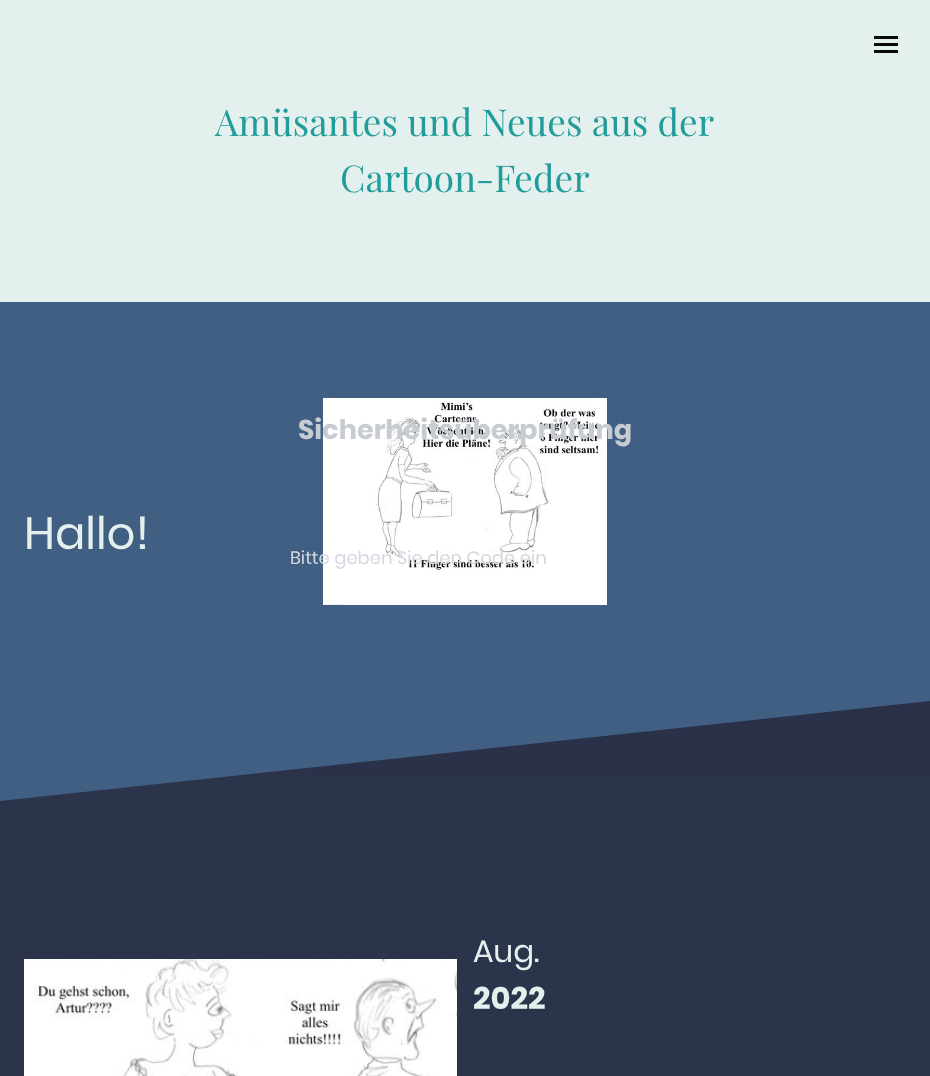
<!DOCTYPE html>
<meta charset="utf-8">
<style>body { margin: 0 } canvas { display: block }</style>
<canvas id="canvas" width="930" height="1076"></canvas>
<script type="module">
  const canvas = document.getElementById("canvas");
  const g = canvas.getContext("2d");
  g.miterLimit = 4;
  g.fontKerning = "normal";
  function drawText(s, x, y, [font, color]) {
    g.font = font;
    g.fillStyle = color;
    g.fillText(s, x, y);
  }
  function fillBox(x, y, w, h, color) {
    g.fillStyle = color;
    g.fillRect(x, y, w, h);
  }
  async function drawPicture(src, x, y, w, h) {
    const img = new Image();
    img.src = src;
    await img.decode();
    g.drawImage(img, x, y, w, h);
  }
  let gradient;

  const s1 = ["37px Playfair Display", "#209D9B"];
  const s2 = ["45px Poppins", "#E4F0ED"];
  const s3 = ["31px Poppins", "#E4F0ED"];
  const s4 = ["bold 31px Poppins", "#E4F0ED"];
  const s5 = ["bold 27px Poppins", "#C7CCD3"];
  const s6 = ["18px Poppins", "#D3D8DE"];

  fillBox(0, 0, 930, 1076, "#FFFFFF");
  fillBox(0, 0, 930, 302, "#E4F0ED");
  fillBox(874, 36, 24, 3, "#090A0A");
  fillBox(874, 43, 24, 3, "#090A0A");
  fillBox(874, 50, 24, 3, "#090A0A");
  drawText("Amüsantes und Neues aus der", 215, 136, s1);
  drawText("Cartoon-Feder", 340, 192, s1);
  g.fillStyle = "#2C344C";
  g.beginPath();
  g.moveTo(0, 701);
  g.lineTo(0, 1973);
  g.lineTo(930, 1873);
  g.lineTo(930, 701);
  g.closePath();
  g.fill();
  gradient = g.createLinearGradient(465, 701, 465, 851);
  gradient.addColorStop(0, "#293047");
  gradient.addColorStop(1, "#2C344C");
  g.fillStyle = gradient;
  g.fillRect(0, 701, 930, 75);
  g.fillStyle = "#405F83";
  g.beginPath();
  g.moveTo(0, 302);
  g.lineTo(0, 801);
  g.lineTo(930, 701);
  g.lineTo(930, 302);
  g.closePath();
  g.fill();
  drawText("Hallo!", 24, 549, s2);
  await drawPicture("pic1.png", 323, 398, 284, 207);
  await drawPicture("pic2.png", 24, 959, 433, 117);
  drawText("Aug.", 473, 962, s3);
  drawText("2022", 473, 1009, s4);
  drawText("Sicherheitsüberprüfung", 298, 439, s5);
  drawText("Bitte geben Sie den Code ein", 290, 564, s6);
</script>
